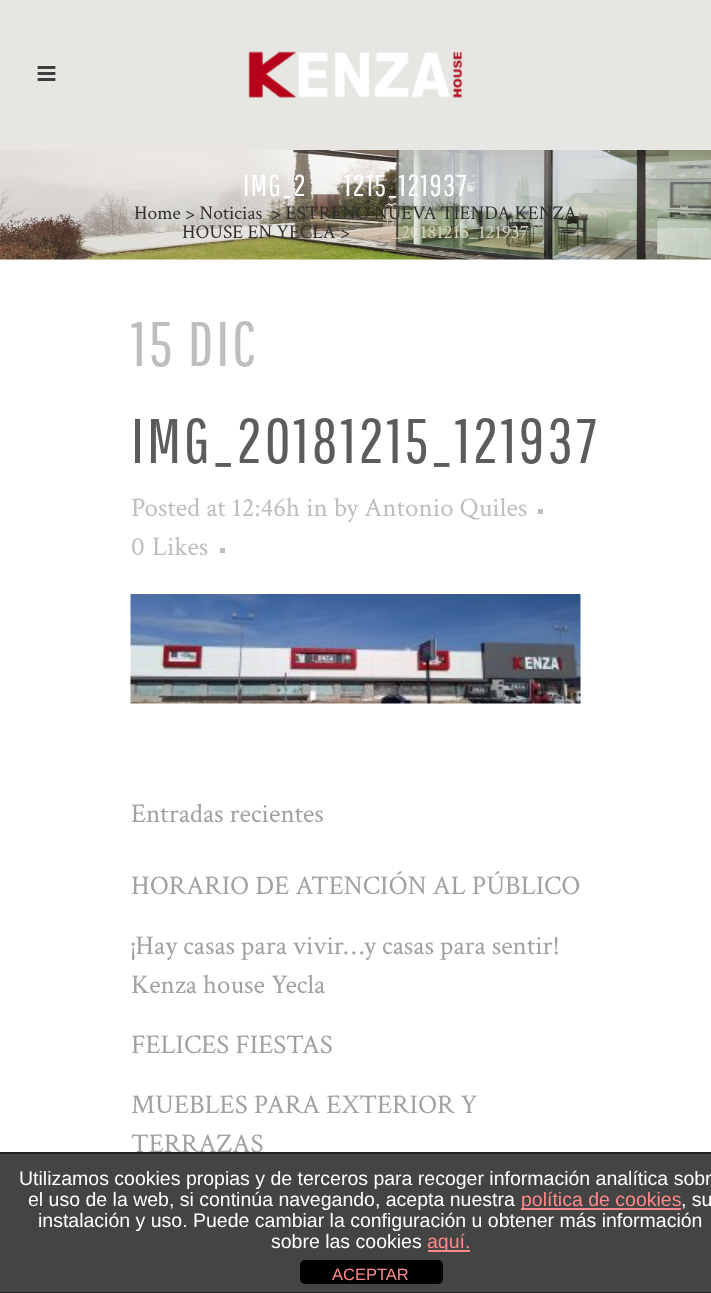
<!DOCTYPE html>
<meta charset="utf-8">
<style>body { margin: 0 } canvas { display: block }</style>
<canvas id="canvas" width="711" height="1293"></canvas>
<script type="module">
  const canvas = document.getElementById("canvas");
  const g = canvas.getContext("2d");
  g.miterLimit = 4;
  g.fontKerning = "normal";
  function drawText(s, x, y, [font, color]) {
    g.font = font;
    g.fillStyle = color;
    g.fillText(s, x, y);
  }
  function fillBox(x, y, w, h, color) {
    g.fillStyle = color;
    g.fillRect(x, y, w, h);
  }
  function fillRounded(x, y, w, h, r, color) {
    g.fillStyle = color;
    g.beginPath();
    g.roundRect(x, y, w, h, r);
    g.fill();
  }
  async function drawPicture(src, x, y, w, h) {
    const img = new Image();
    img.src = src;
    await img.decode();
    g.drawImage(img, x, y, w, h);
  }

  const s1 = ["30px Pathway Gothic One", "#FFFFFF"];
  const s2 = ["19.5px Crimson Text", "#303030"];
  const s3 = ["19.5px Crimson Text", "#D3CCBE"];
  const s4 = ["63px Pathway Gothic One", "#BEBEBE"];
  const s5 = ["63px Pathway Gothic One", "#5C5C5C"];
  const s6 = ["27px Crimson Text", "#BEBEBE"];
  const s7 = ["27px Crimson Text", "#A1A1A1"];
  const s8 = ["19.5px Liberation Sans", "#FFFFFF"];
  const s9 = ["19.5px Liberation Sans", "#FF8888"];
  const s10 = ["16.5px Liberation Sans", "#FF8888"];

  fillBox(0, 0, 711, 1293, "#FFFFFF");
  fillBox(0, 0, 711, 150, "#E7E6E2");
  await drawPicture("pic1.png", 37, 66, 19, 15);
  await drawPicture("pic2.png", 248, 51, 215, 47);
  await drawPicture("pic3.png", 0, 150, 711, 110);
  g.letterSpacing = "1.5px";
  drawText("IMG_2", 243, 196, s1);
  drawText("1215_121937", 344, 196, s1);
  g.letterSpacing = "0px";
  drawText("Home > Noticias", 134, 219, s2);
  drawText("> ESTRENO NUEVA TIENDA KENZA", 271, 219, s2);
  drawText("HOUSE EN YECLA >", 182, 238, s2);
  drawText("_20181215_121937", 392, 238, s3);
  g.letterSpacing = "3px";
  drawText("15 DIC", 131, 366, s4);
  drawText("IMG_20181215_121937", 131, 463, s5);
  g.letterSpacing = "0px";
  drawText("Posted at 12:46h in by Antonio Quiles", 131, 516, s6);
  fillBox(538, 509, 5, 5, "#BEBEBE");
  drawText("0", 131, 555, s6);
  drawText("Likes", 152, 555, s6);
  fillBox(220, 548, 5, 5, "#BEBEBE");
  await drawPicture("pic4.png", 130, 594, 451, 110);
  drawText("Entradas recientes", 131, 822, s7);
  drawText("HORARIO DE ATENCIÓN AL PÚBLICO", 131, 894, s7);
  drawText("¡Hay casas para vivir…y casas para sentir!", 131, 954, s7);
  drawText("Kenza house Yecla", 131, 993, s7);
  drawText("FELICES FIESTAS", 131, 1053, s7);
  drawText("MUEBLES PARA EXTERIOR Y", 131, 1113, s7);
  drawText("TERRAZAS", 131, 1152, s7);
  fillBox(0, 1154, 711, 138, "#444444");
  fillBox(0, 1152, 711, 2, "#222222");
  fillBox(0, 1292, 711, 1, "#222222");
  drawText("Utilizamos cookies propias y de terceros para recoger información analítica sobr", 19, 1185, s8);
  drawText("el uso de la web, si continúa navegando, acepta nuestra", 28, 1206, s8);
  fillBox(521, 1208, 160, 2, "#FF8888");
  drawText("política de cookies", 521, 1206, s9);
  drawText(", su", 681, 1206, s8);
  drawText("instalación y uso. Puede cambiar la configuración u obtener más información", 38, 1227, s8);
  drawText("sobre las cookies", 271, 1248, s8);
  fillBox(428, 1250, 42, 2, "#FF8888");
  drawText("aquí.", 427, 1248, s9);
  fillRounded(300, 1260, 143, 24, 5, "#000000");
  drawText("ACEPTAR", 332, 1280, s10);
</script>
